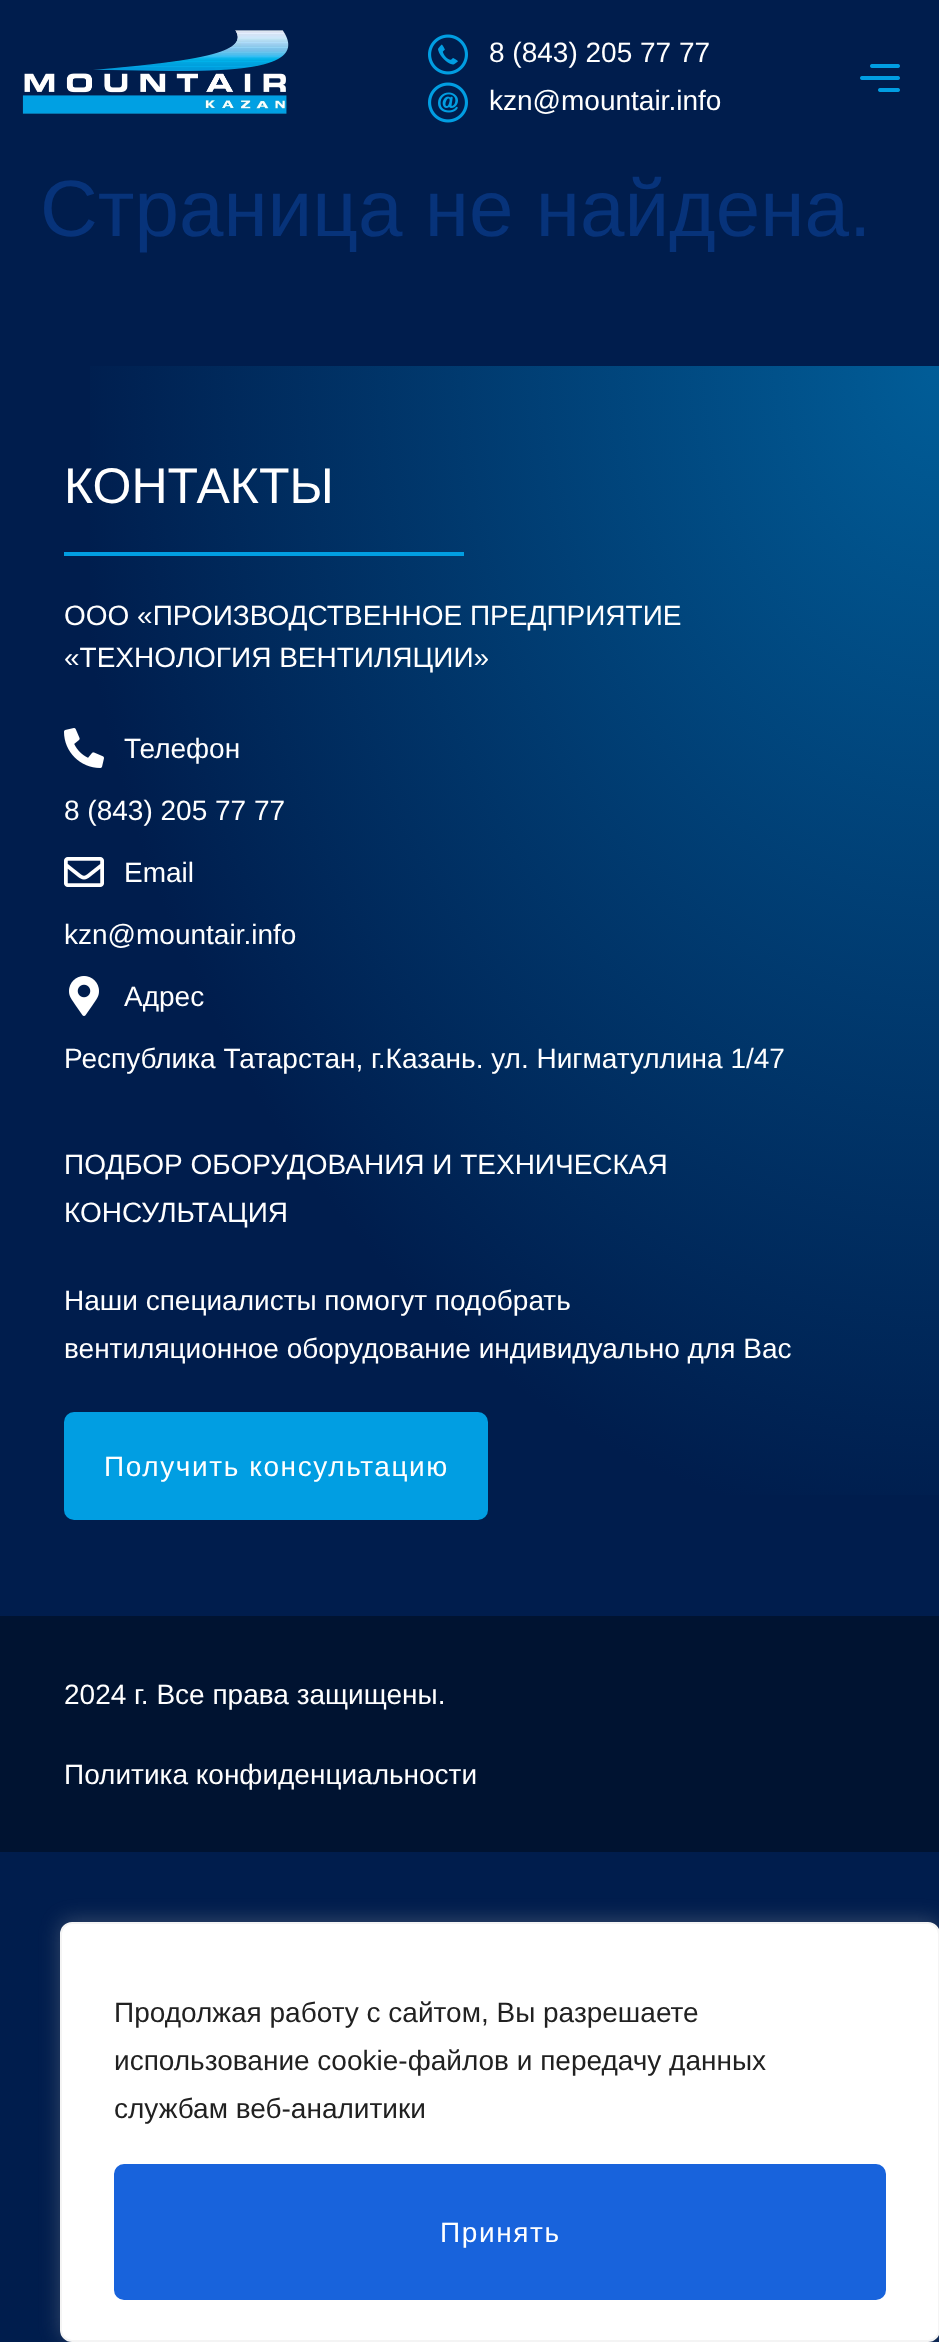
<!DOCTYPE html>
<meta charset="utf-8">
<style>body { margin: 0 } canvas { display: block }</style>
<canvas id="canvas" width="939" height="2342"></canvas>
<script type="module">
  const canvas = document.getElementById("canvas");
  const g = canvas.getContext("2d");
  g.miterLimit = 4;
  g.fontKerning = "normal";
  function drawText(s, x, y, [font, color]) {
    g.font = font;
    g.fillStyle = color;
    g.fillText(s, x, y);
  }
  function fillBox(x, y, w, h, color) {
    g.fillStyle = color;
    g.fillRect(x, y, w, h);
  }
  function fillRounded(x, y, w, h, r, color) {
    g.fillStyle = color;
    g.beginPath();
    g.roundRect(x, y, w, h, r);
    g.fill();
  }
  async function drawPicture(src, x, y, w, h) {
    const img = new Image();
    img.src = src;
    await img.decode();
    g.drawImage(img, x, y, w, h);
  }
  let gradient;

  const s1 = ["28px Liberation Sans", "#FFFFFF"];
  const s2 = ["80px Liberation Sans", "#07337A"];
  const s3 = ["50px Liberation Sans", "#FFFFFF"];
  const s4 = ["28px Liberation Sans", "#212121"];

  fillBox(0, 0, 939, 2342, "#001D4D");
  await drawPicture("pic1.png", 22, 30, 267, 84);
  await drawPicture("pic2.png", 428, 34, 40, 41);
  drawText("8 (843) 205 77 77", 489, 62, s1);
  await drawPicture("pic3.png", 428, 82, 40, 41);
  drawText("kzn@mountair.info", 489, 110, s1);
  await drawPicture("pic4.png", 860, 64, 40, 28);
  drawText("Страница не найдена.", 40, 236, s2);
  gradient = g.createRadialGradient(940, 275.12, 0, 940, 275.12, 1329);
  gradient.addColorStop(0, "#015D98");
  gradient.addColorStop(0.66, "#001D4D");
  g.fillStyle = gradient;
  g.beginPath();
  g.rect(90, 366, 849, 1129);
  g.save();
  g.clip();
  g.scale(1, 1768 / 1329);
  g.fillRect(0, 0, 939, 1761);
  g.restore();
  drawText("КОНТАКТЫ", 64, 503, s3);
  fillBox(64, 552, 400, 4, "#019EE2");
  drawText("ООО «ПРОИЗВОДСТВЕННОЕ ПРЕДПРИЯТИЕ", 64, 625, s1);
  drawText("«ТЕХНОЛОГИЯ ВЕНТИЛЯЦИИ»", 64, 667, s1);
  await drawPicture("pic5.png", 64, 728, 40, 40);
  drawText("Телефон", 124, 758, s1);
  drawText("8 (843) 205 77 77", 64, 820, s1);
  await drawPicture("pic6.png", 64, 857, 40, 30);
  drawText("Email", 124, 882, s1);
  drawText("kzn@mountair.info", 64, 944, s1);
  await drawPicture("pic7.png", 69, 976, 30, 40);
  drawText("Адрес", 124, 1006, s1);
  drawText("Республика Татарстан, г.Казань. ул. Нигматуллина 1/47", 64, 1068, s1);
  drawText("ПОДБОР ОБОРУДОВАНИЯ И ТЕХНИЧЕСКАЯ", 64, 1174, s1);
  drawText("КОНСУЛЬТАЦИЯ", 64, 1222, s1);
  drawText("Наши специалисты помогут подобрать", 64, 1310, s1);
  drawText("вентиляционное оборудование индивидуально для Вас", 64, 1358, s1);
  fillRounded(64, 1412, 424, 108, 10, "#019EE2");
  g.letterSpacing = "1.6px";
  drawText("Получить консультацию", 104, 1476, s1);
  fillBox(0, 1616, 939, 236, "#001331");
  g.letterSpacing = "0px";
  drawText("2024 г. Все права защищены.", 64, 1704, s1);
  drawText("Политика конфиденциальности", 64, 1784, s1);
  g.fillStyle = "rgba(172, 171, 171, 0.3)";
  g.filter = "blur(10px)";
  g.beginPath();
  g.roundRect(60, 1920, 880, 420, 12);
  g.fill();
  g.filter = "none";
  g.fillStyle = "#FFFFFF";
  g.beginPath();
  g.roundRect(61, 1923, 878, 418, 11);
  g.fill();
  g.strokeStyle = "#F4F4F4";
  g.lineWidth = 2;
  g.stroke();
  drawText("Продолжая работу с сайтом, Вы разрешаете", 114, 2022, s4);
  drawText("использование cookie-файлов и передачу данных", 114, 2070, s4);
  drawText("службам веб-аналитики", 114, 2118, s4);
  g.fillStyle = "#1863DC";
  g.beginPath();
  g.roundRect(116, 2166, 768, 132, 8);
  g.fill();
  g.strokeStyle = "#1863DC";
  g.lineWidth = 4;
  g.stroke();
  g.letterSpacing = "1.6px";
  drawText("Принять", 440, 2242, s1);
</script>
